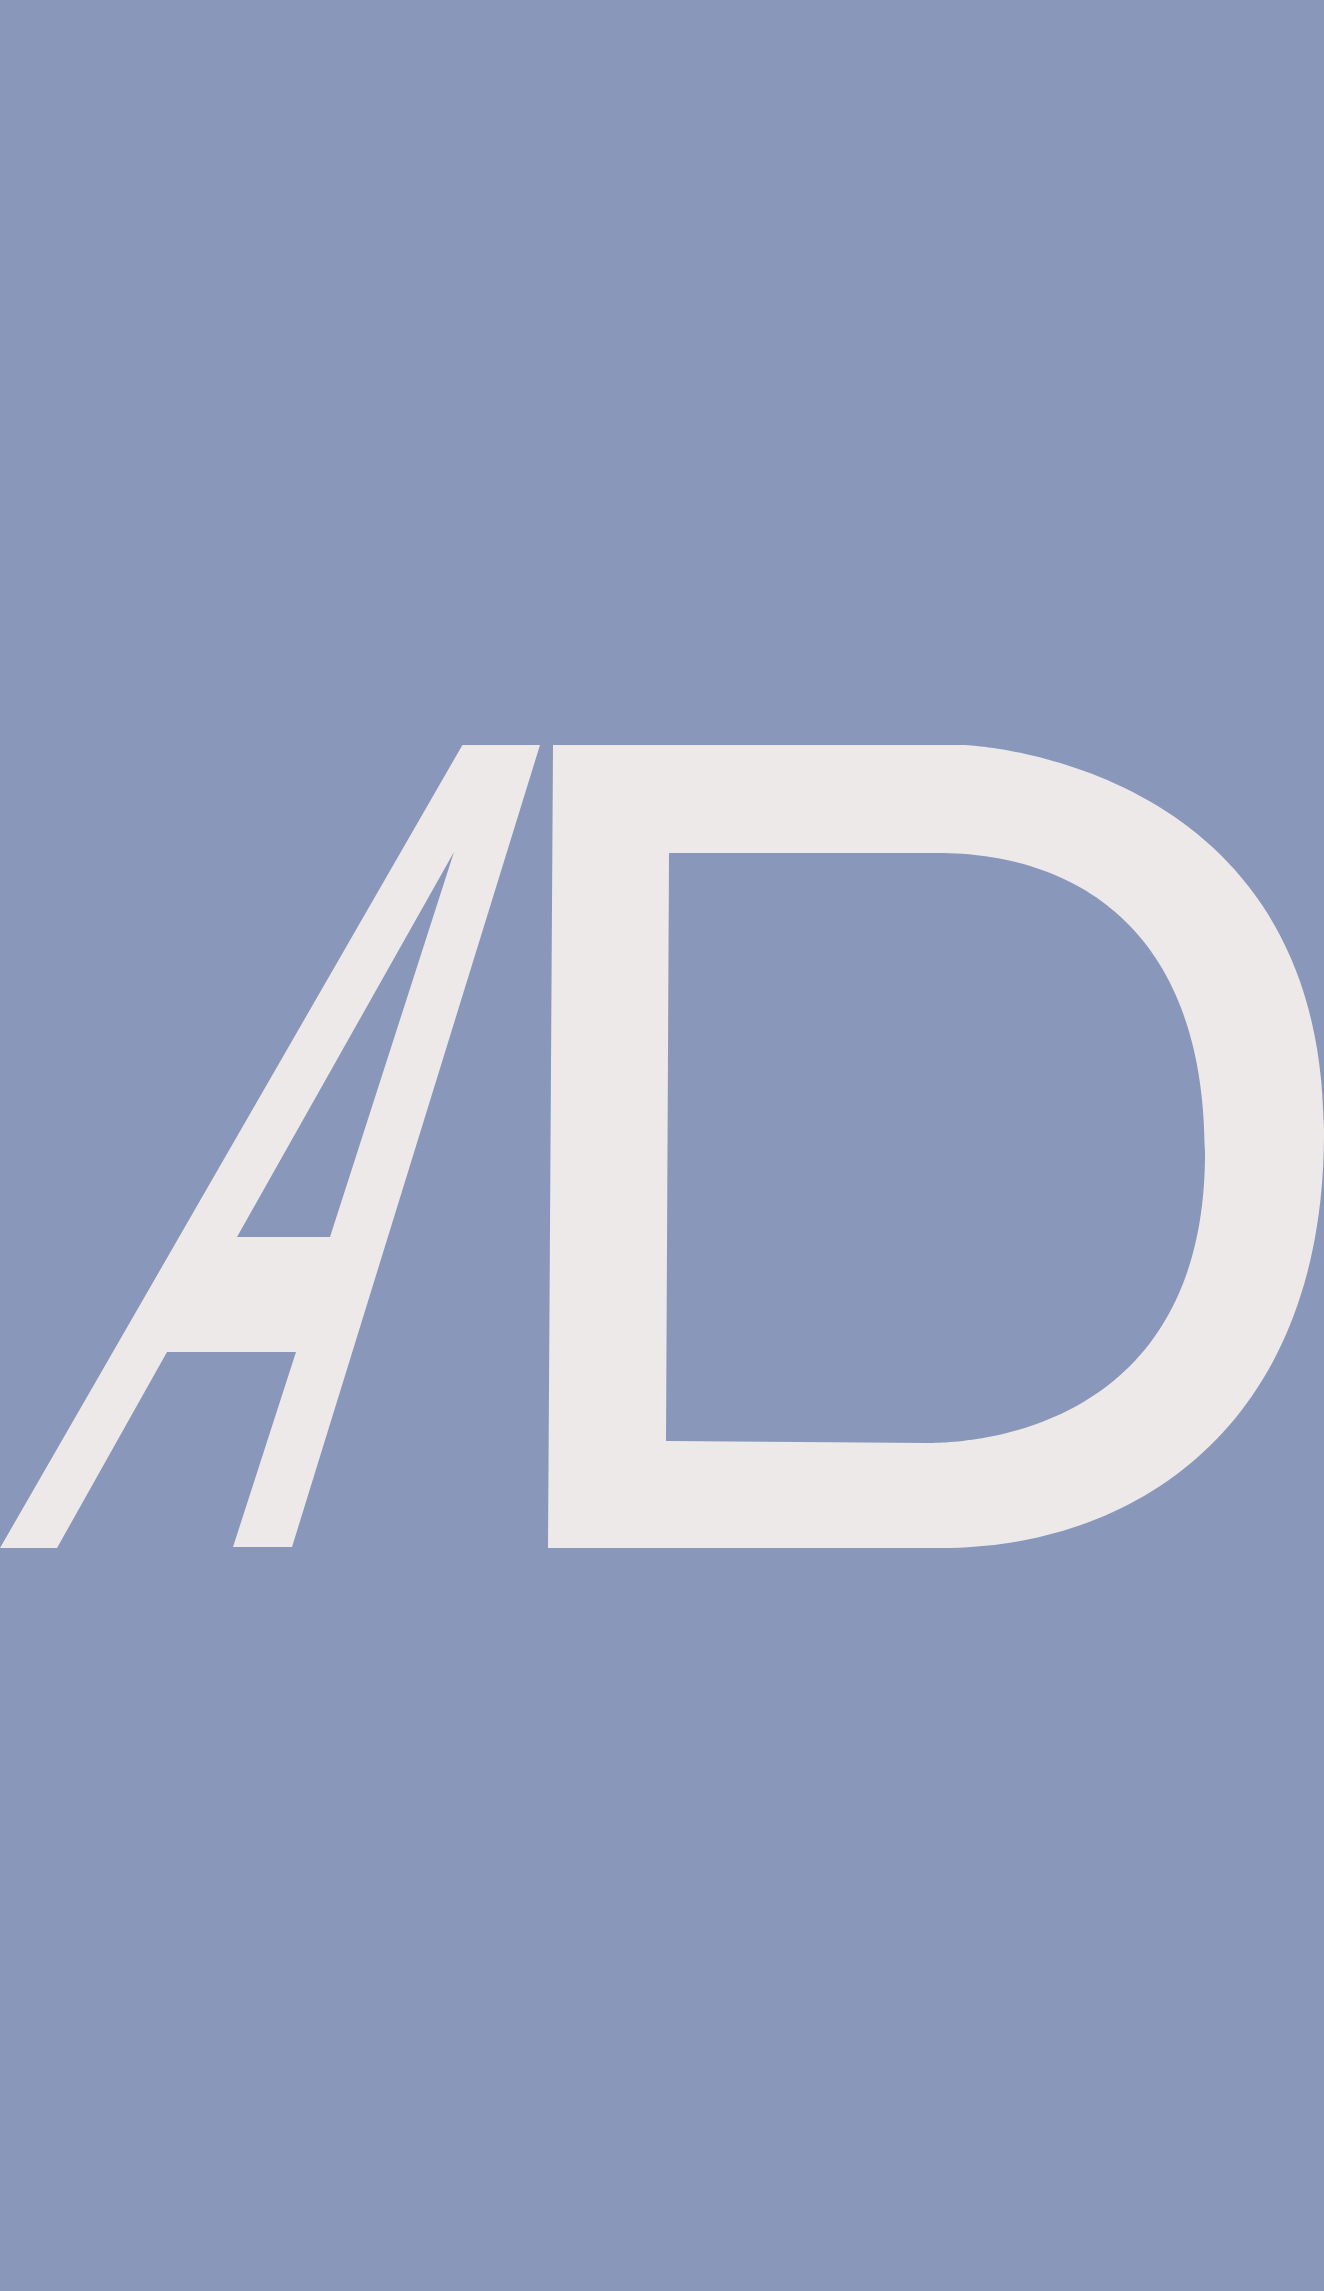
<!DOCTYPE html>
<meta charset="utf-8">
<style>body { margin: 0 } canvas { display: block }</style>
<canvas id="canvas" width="1324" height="2291"></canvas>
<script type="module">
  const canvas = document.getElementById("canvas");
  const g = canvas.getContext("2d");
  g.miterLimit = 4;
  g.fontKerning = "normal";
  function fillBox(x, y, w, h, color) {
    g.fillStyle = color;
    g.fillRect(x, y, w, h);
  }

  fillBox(0, 0, 1324, 2291, "#8998BA");
  g.save();
  g.beginPath();
  g.rect(0, 745, 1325, 803);
  g.clip();
  g.fillStyle = "#EDE9E9";
  g.beginPath();
  g.moveTo(233, 1547);
  g.lineTo(296, 1352);
  g.lineTo(167, 1352);
  g.lineTo(57, 1548);
  g.lineTo(0, 1548);
  g.lineTo(463, 744);
  g.lineTo(540, 745);
  g.lineTo(292, 1547);
  g.closePath();
  g.moveTo(237, 1237);
  g.lineTo(330, 1237);
  g.lineTo(454, 852);
  g.closePath();
  g.fill();
  g.restore();
  g.fillStyle = "#EDE9E9";
  g.beginPath();
  g.moveTo(669, 853);
  g.lineTo(938, 853);
  g.bezierCurveTo(1071, 853, 1207, 925, 1205, 1157);
  g.bezierCurveTo(1203, 1427, 979, 1443, 928, 1443);
  g.lineTo(666, 1441);
  g.moveTo(965, 745);
  g.lineTo(553, 745);
  g.lineTo(548, 1548);
  g.lineTo(942, 1548);
  g.bezierCurveTo(1129, 1548, 1323, 1432, 1324, 1135);
  g.bezierCurveTo(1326, 765, 979, 746, 965, 745);
  g.closePath();
  g.fill();
</script>
